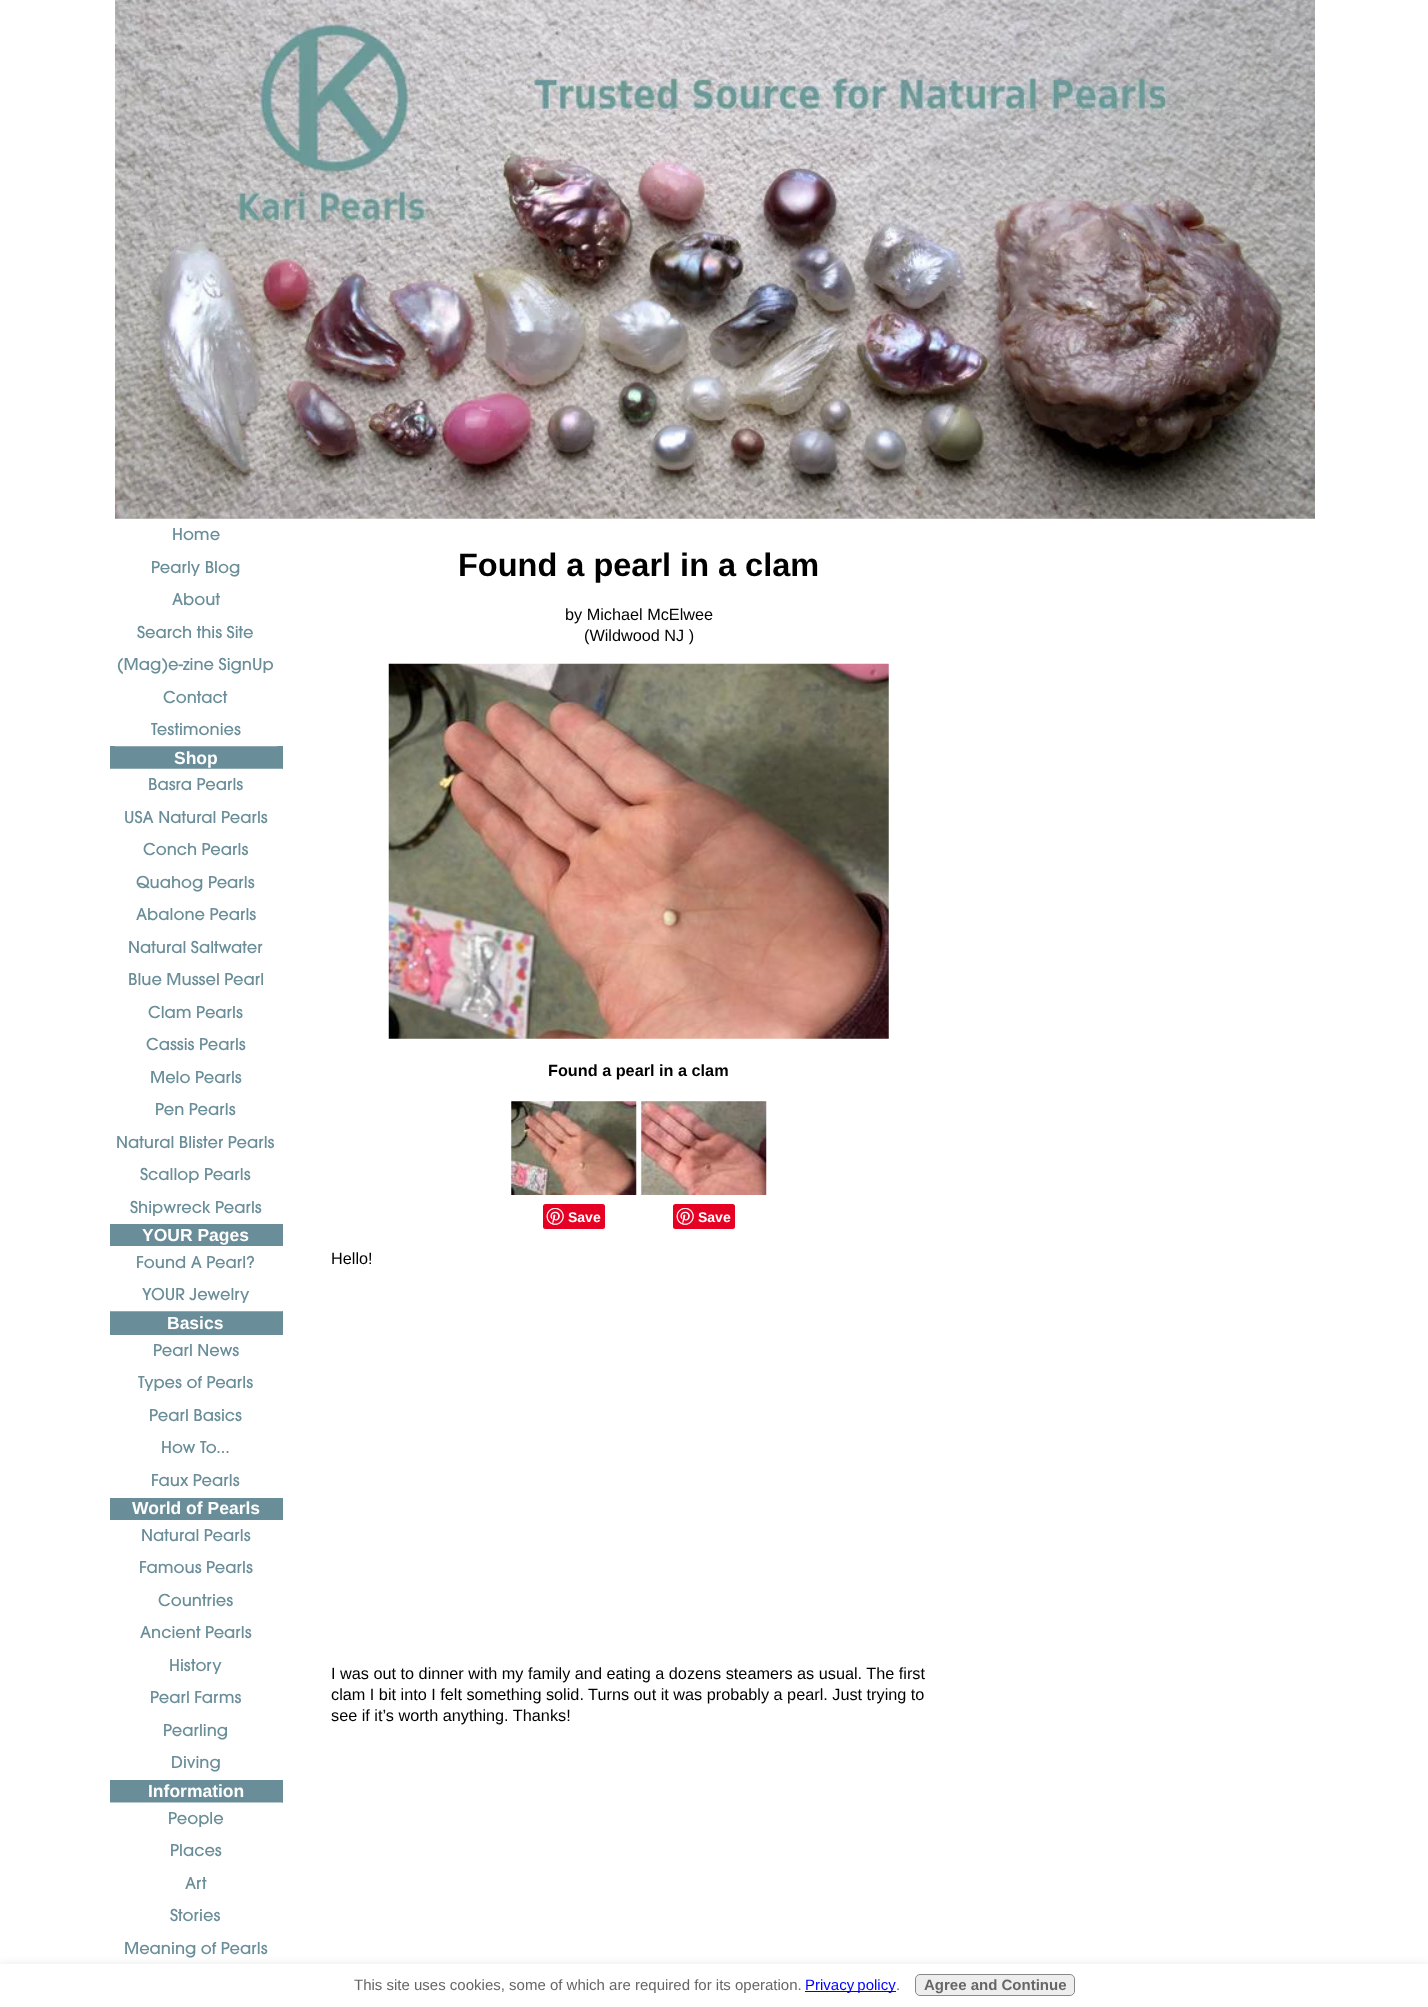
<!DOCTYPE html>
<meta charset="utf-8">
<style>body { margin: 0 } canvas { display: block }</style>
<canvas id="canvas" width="1428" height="2007"></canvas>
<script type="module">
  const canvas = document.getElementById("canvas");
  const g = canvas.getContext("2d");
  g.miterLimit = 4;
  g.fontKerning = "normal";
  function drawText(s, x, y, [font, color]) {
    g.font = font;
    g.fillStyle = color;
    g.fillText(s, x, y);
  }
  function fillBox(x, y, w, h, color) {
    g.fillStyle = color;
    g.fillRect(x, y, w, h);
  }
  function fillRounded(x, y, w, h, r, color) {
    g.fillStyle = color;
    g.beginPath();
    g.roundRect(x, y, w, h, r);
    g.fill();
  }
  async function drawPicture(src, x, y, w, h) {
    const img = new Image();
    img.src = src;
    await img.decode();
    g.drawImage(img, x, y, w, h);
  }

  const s1 = ["16.25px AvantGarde", "#6A8E99"];
  const s2 = ["bold 17.5px Liberation Sans", "#FFFFFF"];
  const s3 = ["bold 32.5px Liberation Sans", "#000000"];
  const s4 = ["16.25px Liberation Sans", "#000000"];
  const s5 = ["bold 16.25px Liberation Sans", "#000000"];
  const s6 = ["bold 14px Liberation Sans", "#FFFFFF"];
  const s7 = ["15px Liberation Sans", "#666666"];
  const s8 = ["15px Liberation Sans", "#0000FF"];
  const s9 = ["bold 15px Liberation Sans", "#666666"];

  fillBox(0, 0, 1428, 2007, "#FFFFFF");
  await drawPicture("pic1.png", 115, 0, 1200, 519);
  drawText("Home", 172, 540, s1);
  drawText("Pearly Blog", 151, 573, s1);
  drawText("About", 172, 605, s1);
  drawText("Search this Site", 137, 638, s1);
  drawText("(Mag)e-zine SignUp", 117, 670, s1);
  drawText("Contact", 163, 703, s1);
  fillBox(110, 746, 173, 23, "#6A8E99");
  await drawPicture("pic2.png", 115, 746, 163, 1);
  drawText("Testimonies", 151, 735, s1);
  drawText("Shop", 174, 764, s2);
  await drawPicture("pic3.png", 110, 768, 173, 1);
  drawText("Basra Pearls", 148, 790, s1);
  drawText("USA Natural Pearls", 124, 823, s1);
  drawText("Conch Pearls", 143, 855, s1);
  drawText("Quahog Pearls", 136, 888, s1);
  drawText("Abalone Pearls", 136, 920, s1);
  drawText("Natural Saltwater", 128, 953, s1);
  drawText("Blue Mussel Pearl", 128, 985, s1);
  drawText("Clam Pearls", 148, 1018, s1);
  drawText("Cassis Pearls", 146, 1050, s1);
  drawText("Melo Pearls", 150, 1083, s1);
  drawText("Pen Pearls", 155, 1115, s1);
  drawText("Natural Blister Pearls", 116, 1148, s1);
  drawText("Scallop Pearls", 140, 1180, s1);
  drawText("Shipwreck Pearls", 130, 1213, s1);
  fillBox(110, 1224, 173, 22, "#6A8E99");
  drawText("YOUR Pages", 142, 1241, s2);
  drawText("Found A Pearl?", 136, 1268, s1);
  fillBox(110, 1311, 173, 24, "#6A8E99");
  await drawPicture("pic3.png", 110, 1311, 173, 1);
  drawText("YOUR Jewelry", 142, 1300, s1);
  drawText("Basics", 167, 1329, s2);
  drawText("Pearl News", 153, 1356, s1);
  drawText("Types of Pearls", 138, 1388, s1);
  drawText("Pearl Basics", 149, 1421, s1);
  drawText("How To...", 161, 1453, s1);
  drawText("Faux Pearls", 151, 1486, s1);
  fillBox(110, 1498, 173, 22, "#6A8E99");
  drawText("World of Pearls", 132, 1514, s2);
  drawText("Natural Pearls", 141, 1541, s1);
  drawText("Famous Pearls", 139, 1573, s1);
  drawText("Countries", 158, 1606, s1);
  drawText("Ancient Pearls", 140, 1638, s1);
  drawText("History", 169, 1671, s1);
  drawText("Pearl Farms", 150, 1703, s1);
  drawText("Pearling", 163, 1736, s1);
  drawText("Diving", 171, 1768, s1);
  fillBox(110, 1780, 173, 23, "#6A8E99");
  drawText("Information", 148, 1797, s2);
  await drawPicture("pic4.png", 110, 1802, 173, 1);
  drawText("People", 168, 1824, s1);
  drawText("Places", 170, 1856, s1);
  drawText("Art", 185, 1889, s1);
  drawText("Stories", 170, 1921, s1);
  drawText("Meaning of Pearls", 124, 1954, s1);
  drawText("Found a pearl in a clam", 458, 576, s3);
  drawText("by Michael McElwee", 565, 620, s4);
  drawText("(Wildwood NJ )", 584, 641, s4);
  await drawPicture("pic5.png", 388, 663, 501, 376);
  drawText("Found a pearl in a clam", 548, 1076, s5);
  await drawPicture("pic6.png", 511, 1101, 126, 94);
  fillRounded(543, 1204, 62, 25, 2.5, "#E60023");
  await drawPicture("pic7.png", 546, 1208, 18, 17);
  drawText("Save", 568, 1222, s6);
  await drawPicture("pic8.png", 641, 1101, 126, 94);
  fillRounded(673, 1204, 62, 25, 2.5, "#E60023");
  await drawPicture("pic7.png", 676, 1208, 18, 17);
  drawText("Save", 698, 1222, s6);
  drawText("Hello!", 331, 1264, s4);
  drawText("I was out to dinner with my family and eating a dozens steamers as usual. The first", 331, 1679, s4);
  drawText("clam I bit into I felt something solid. Turns out it was probably a pearl. Just trying to", 331, 1700, s4);
  drawText("see if it’s worth anything. Thanks!", 331, 1721, s4);
  g.fillStyle = "rgba(0, 0, 0, 0.2)";
  g.filter = "blur(6px)";
  g.beginPath();
  g.rect(-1, 1968, 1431, 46);
  g.fill();
  g.filter = "none";
  fillBox(0, 1964, 1428, 43, "#FFFFFF");
  drawText("This site uses cookies, some of which are required for its operation.", 354, 1990, s7);
  fillBox(805, 1991, 91, 1, "#0000FF");
  g.wordSpacing = "-1px";
  drawText("Privacy policy", 805, 1990, s8);
  g.wordSpacing = "0px";
  drawText(".", 896, 1990, s7);
  g.fillStyle = "#EEEEEE";
  g.beginPath();
  g.roundRect(915.5, 1974.5, 159, 21, 4.5);
  g.fill();
  g.strokeStyle = "#888888";
  g.stroke();
  drawText("Agree and Continue", 924, 1990, s9);
</script>
